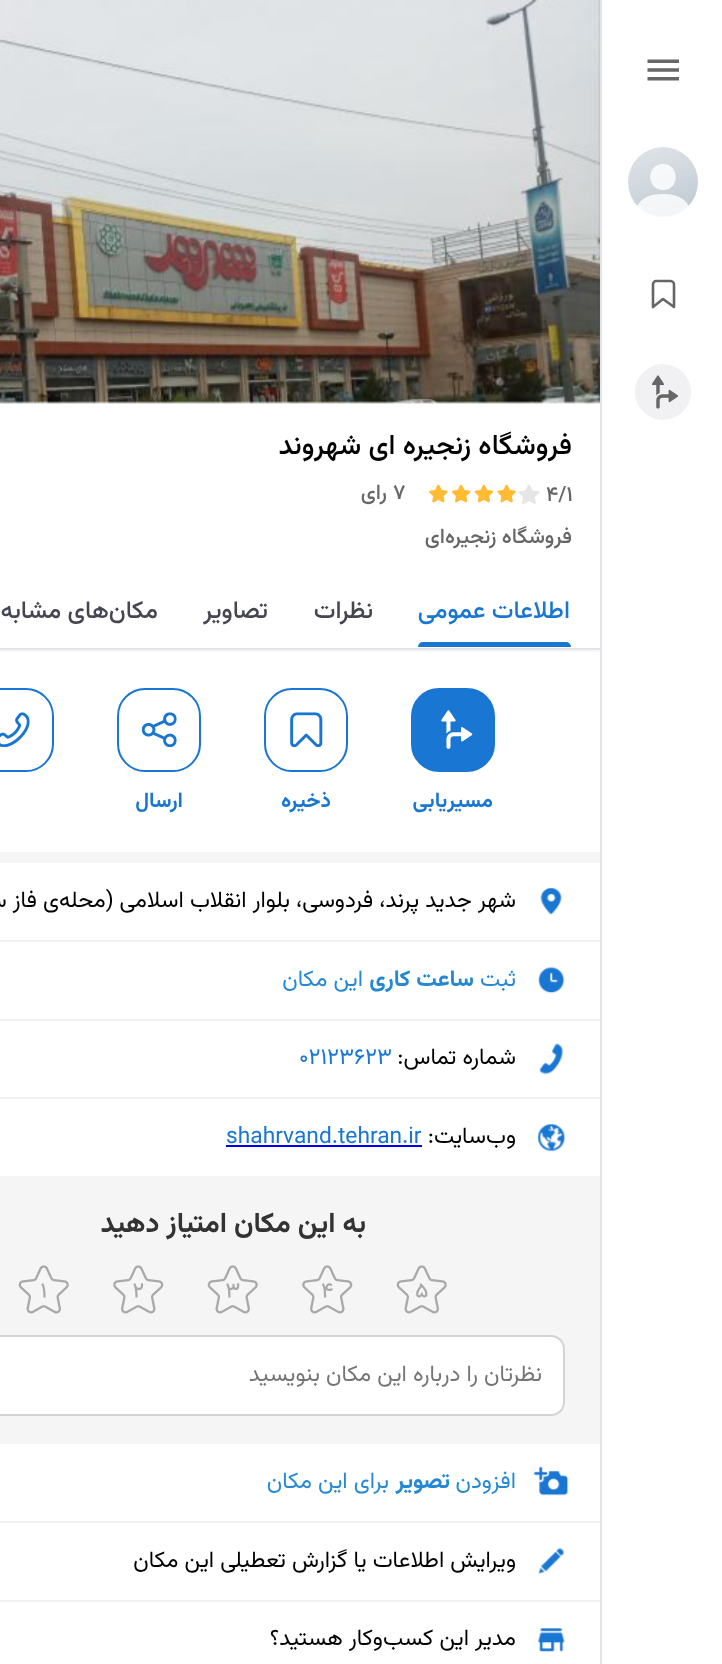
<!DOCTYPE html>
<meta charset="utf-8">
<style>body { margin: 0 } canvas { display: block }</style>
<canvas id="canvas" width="722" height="1664"></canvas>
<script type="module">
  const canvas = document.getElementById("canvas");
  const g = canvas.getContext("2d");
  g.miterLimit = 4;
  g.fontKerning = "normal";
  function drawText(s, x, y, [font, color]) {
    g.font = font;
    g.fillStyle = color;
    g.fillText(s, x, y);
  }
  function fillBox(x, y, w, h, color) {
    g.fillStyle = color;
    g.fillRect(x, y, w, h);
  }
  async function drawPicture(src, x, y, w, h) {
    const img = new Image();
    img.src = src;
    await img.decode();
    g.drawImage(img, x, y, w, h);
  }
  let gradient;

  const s1 = ["500 28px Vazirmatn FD", "#000000"];
  const s2 = ["500 21px Vazirmatn FD", "#666666"];
  const s3 = ["500 24.5px Vazirmatn FD", "#1976D2"];
  const s4 = ["500 24.5px Vazirmatn FD", "#464653"];
  const s5 = ["bold 21px Vazirmatn FD", "#1976D2"];
  const s6 = ["22.75px Vazirmatn FD", "#000000"];
  const s7 = ["22.75px Vazirmatn FD", "#2488D4"];
  const s8 = ["bold 22.75px Vazirmatn FD", "#2488D4"];
  const s9 = ["22.75px Vazirmatn FD", "#1976D2"];
  const s10 = ["bold 28px Vazirmatn FD", "#333333"];
  const s11 = ["22.75px Vazirmatn FD", "#757575"];

  fillBox(0, 0, 722, 1664, "#FFFFFF");
  g.save();
  g.beginPath();
  g.rect(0, 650, 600, 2);
  g.clip();
  g.fillStyle = "rgba(0, 0, 0, 0.07)";
  g.filter = "blur(2.5px)";
  g.beginPath();
  g.rect(-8, 579, 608, 72);
  g.fill();
  g.filter = "none";
  g.restore();
  fillBox(602, 582, 1, 66, "#FFFFFF");
  fillBox(600, 0, 2, 1664, "#E3E3E8");
  await drawPicture("pic1.png", 647, 59, 32, 22);
  gradient = g.createLinearGradient(653, 151, 677, 217);
  gradient.addColorStop(0, "#DCE1E6");
  gradient.addColorStop(1, "#C1CAD2");
  g.fillStyle = gradient;
  g.beginPath();
  g.arc(663, 182, 35, 0, Math.PI * 2);
  g.fill();
  g.save();
  g.beginPath();
  g.rect(628, 147, 70, 70);
  g.clip();
  g.fillStyle = "rgba(255, 255, 255, 0.8)";
  g.beginPath();
  g.moveTo(663, 194);
  g.bezierCurveTo(649, 194, 642, 198, 637, 206);
  g.bezierCurveTo(651, 221, 675, 221, 689, 206);
  g.bezierCurveTo(684, 198, 677, 194, 663, 194);
  g.closePath();
  g.moveTo(663, 190);
  g.bezierCurveTo(680, 190, 680, 164, 663, 164);
  g.bezierCurveTo(646, 164, 646, 190, 663, 190);
  g.closePath();
  g.fill("evenodd");
  g.restore();
  g.beginPath();
  g.moveTo(663, 299);
  g.lineTo(653, 307);
  g.lineTo(653, 284.5);
  g.bezierCurveTo(653, 282.5, 654.5, 281, 656, 281);
  g.lineTo(670, 281);
  g.bezierCurveTo(672, 281, 674, 282.5, 674, 284.5);
  g.lineTo(674, 307);
  g.closePath();
  g.strokeStyle = "#666666";
  g.lineWidth = 2.6;
  g.lineJoin = "round";
  g.stroke();
  g.fillStyle = "#F1F1F3";
  g.beginPath();
  g.arc(663, 392, 28, 0, Math.PI * 2);
  g.fill();
  await drawPicture("pic2.png", 651, 375, 28, 34);
  await drawPicture("pic3.png", 0, 0, 600, 404);
  g.direction = "rtl";
  drawText("فروشگاه زنجیره ای شهروند", 572, 454, s1);
  g.direction = "ltr";
  drawText("4/1", 546, 501, s2);
  await drawPicture("pic4.png", 518, 484, 22, 20);
  await drawPicture("pic5.png", 497, 484, 19, 19);
  await drawPicture("pic6.png", 474, 484, 19, 19);
  await drawPicture("pic7.png", 452, 484, 19, 19);
  await drawPicture("pic8.png", 429, 484, 19, 19);
  drawText("7", 393, 499, s2);
  g.direction = "rtl";
  drawText("رای", 387, 499, s2);
  drawText("فروشگاه زنجیره‌ای", 572, 543, s2);
  fillBox(0, 648, 600, 2, "#E3E3E8");
  drawText("اطلاعات عمومی", 570, 618, s3);
  g.beginPath();
  g.roundRect(418, 642, 153, 5, [5, 5, 0, 0]);
  g.fill();
  drawText("نظرات", 373, 618, s4);
  drawText("تصاویر", 268, 618, s4);
  drawText("مکان‌های مشابه", 158, 618, s4);
  g.beginPath();
  g.roundRect(-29, 689, 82, 82, 27);
  g.strokeStyle = "#1976D2";
  g.lineWidth = 2;
  g.lineJoin = "miter";
  g.stroke();
  await drawPicture("pic9.png", 0, 712, 30, 35);
  g.fillStyle = "#1976D2";
  g.beginPath();
  g.roundRect(412, 689, 82, 82, 27);
  g.fill();
  g.stroke();
  await drawPicture("pic10.png", 441, 710, 32, 39);
  drawText("مسیریابی", 493, 807, s5);
  g.beginPath();
  g.roundRect(265, 689, 82, 82, 27);
  g.stroke();
  await drawPicture("pic11.png", 290, 712, 33, 35);
  drawText("ذخیره", 331, 807, s5);
  g.beginPath();
  g.roundRect(118, 689, 82, 82, 27);
  g.stroke();
  await drawPicture("pic12.png", 142, 712, 35, 35);
  drawText("ارسال", 183, 807, s5);
  fillBox(0, 852, 600, 11, "#F5F5F5");
  fillBox(0, 940, 600, 2, "#F1F1F3");
  await drawPicture("pic13.png", 540, 887, 22, 28);
  drawText("شهر جدید پرند، فردوسی، بلوار انقلاب اسلامی (محله‌ی فاز سه)", 516, 907, s6);
  fillBox(0, 1019, 600, 2, "#F1F1F3");
  await drawPicture("pic14.png", 538, 967, 27, 26);
  drawText("ثبت", 516, 986, s7);
  drawText("ساعت کاری", 474, 986, s8);
  drawText("این مکان", 363, 986, s7);
  fillBox(0, 1097, 600, 2, "#F1F1F3");
  await drawPicture("pic15.png", 539, 1043, 25, 32);
  drawText("شماره تماس:", 516, 1064, s6);
  g.direction = "ltr";
  drawText("02123623", 299, 1064, s9);
  await drawPicture("pic16.png", 537, 1124, 29, 28);
  g.direction = "rtl";
  drawText("وب‌سایت:", 516, 1143, s6);
  g.direction = "ltr";
  drawText("shahrvand.tehran.ir", 226, 1143, s9);
  fillBox(226, 1145, 196, 2, "#0000EE");
  fillBox(0, 1176, 600, 268, "#F5F5F5");
  g.direction = "rtl";
  drawText("ﺑﻪ اﯾﻦ ﻣﮑﺎن اﻣﺘﯿﺎز دﻫﯿﺪ", 366, 1232, s10);
  await drawPicture("pic17.png", 396, 1265, 51, 49);
  await drawPicture("pic18.png", 302, 1265, 51, 49);
  await drawPicture("pic19.png", 207, 1265, 51, 49);
  await drawPicture("pic20.png", 113, 1265, 51, 49);
  await drawPicture("pic21.png", 18, 1265, 51, 49);
  g.fillStyle = "#FFFFFF";
  g.beginPath();
  g.roundRect(-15, 1336, 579, 79, 13);
  g.fill();
  g.strokeStyle = "#D3D3D3";
  g.stroke();
  drawText("نظرتان را درباره این مکان بنویسید", 542, 1381, s11);
  fillBox(0, 1521, 600, 2, "#F1F1F3");
  await drawPicture("pic22.png", 533, 1466, 36, 30);
  drawText("افزودن", 516, 1488, s7);
  drawText("تصویر", 450, 1488, s8);
  drawText("برای این مکان", 389, 1488, s7);
  fillBox(0, 1600, 600, 2, "#F1F1F3");
  await drawPicture("pic23.png", 538, 1548, 27, 26);
  drawText("ویرایش اطلاعات یا گزارش تعطیلی این مکان", 516, 1567, s6);
  await drawPicture("pic24.png", 538, 1628, 27, 24);
  drawText("مدیر این کسب‌وکار هستید؟", 516, 1645, s6);
</script>
